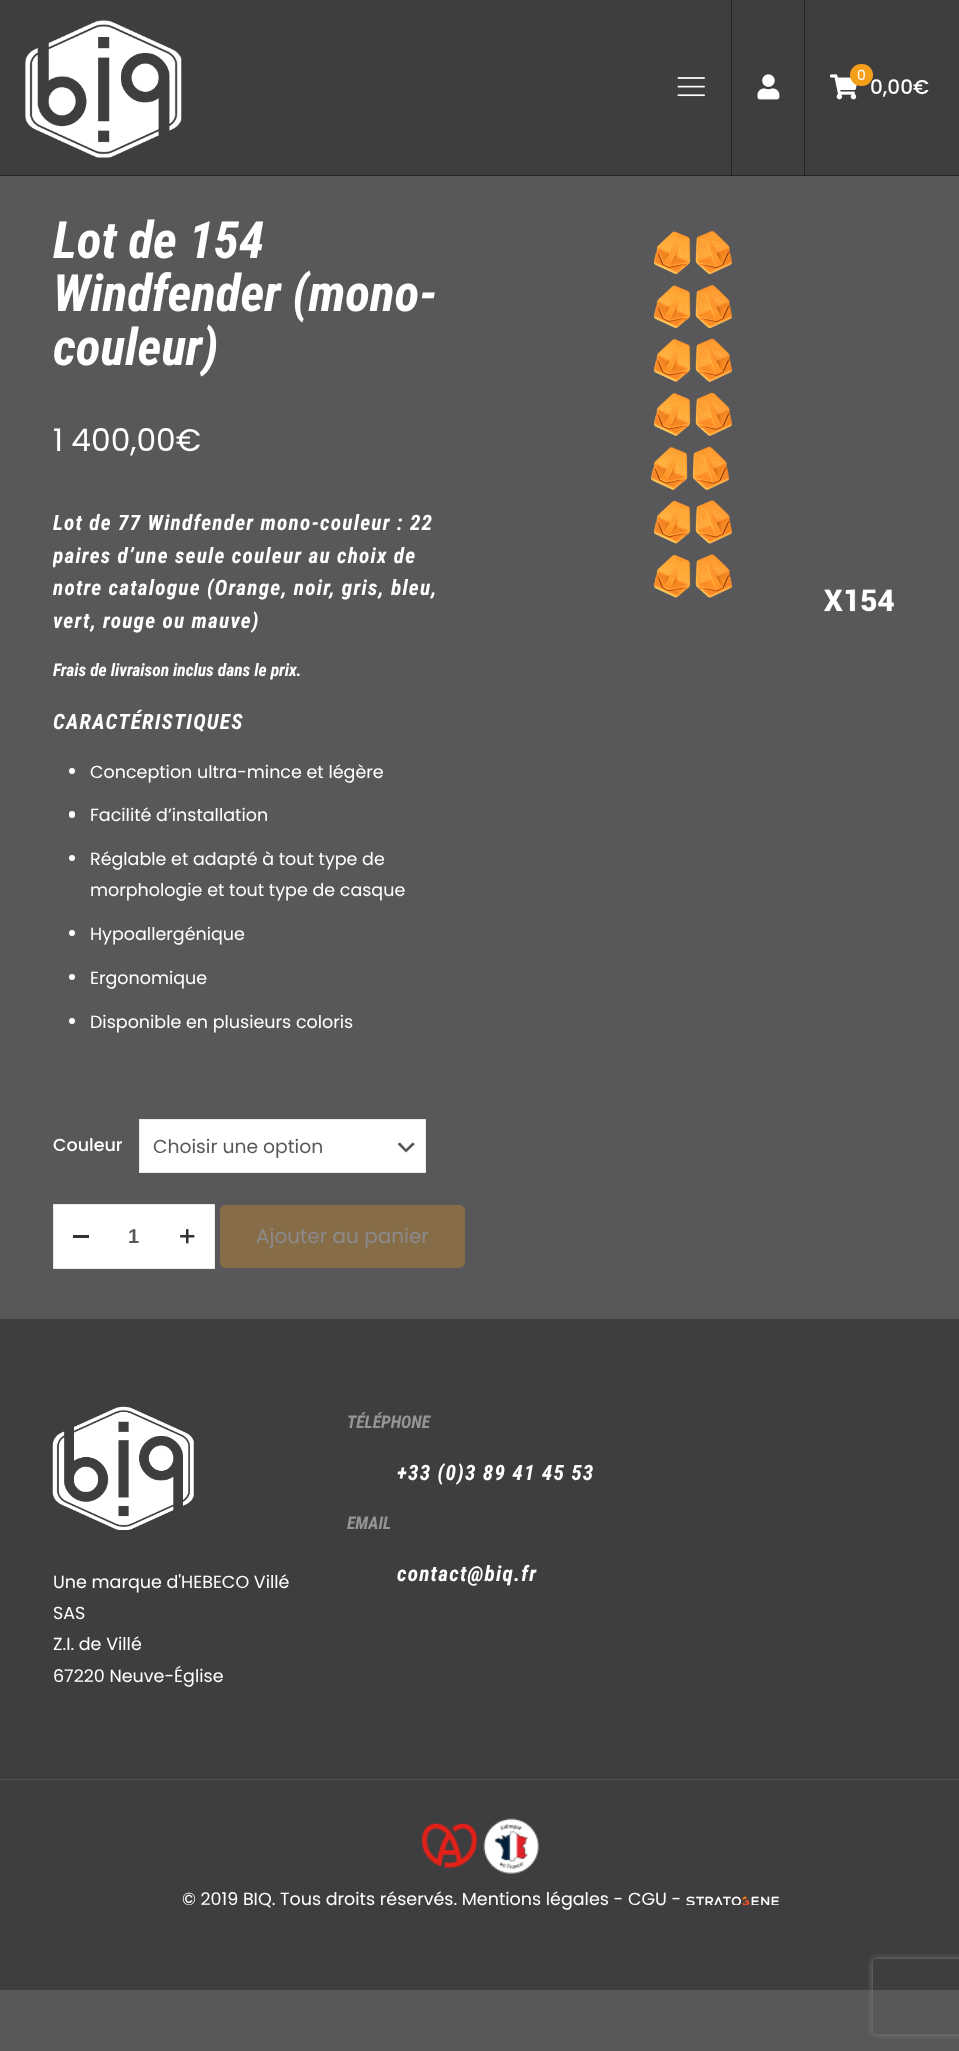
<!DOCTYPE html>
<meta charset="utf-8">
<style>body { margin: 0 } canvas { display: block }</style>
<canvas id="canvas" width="959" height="2051"></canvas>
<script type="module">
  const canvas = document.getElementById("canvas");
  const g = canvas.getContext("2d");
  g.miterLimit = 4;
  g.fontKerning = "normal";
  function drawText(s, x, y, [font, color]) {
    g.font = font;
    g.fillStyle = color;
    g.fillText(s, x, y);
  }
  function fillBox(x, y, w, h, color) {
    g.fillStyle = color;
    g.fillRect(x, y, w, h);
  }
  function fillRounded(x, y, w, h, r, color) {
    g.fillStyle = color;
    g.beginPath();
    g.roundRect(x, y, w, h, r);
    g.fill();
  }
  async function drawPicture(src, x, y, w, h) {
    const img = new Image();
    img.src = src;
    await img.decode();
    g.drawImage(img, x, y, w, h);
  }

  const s1 = ["500 20px Poppins", "#FFFFFF"];
  const s2 = ["14px Poppins", "#FFFFFF"];
  const s3 = ["italic bold 51.25px Roboto Condensed", "#FFFFFF"];
  const s4 = ["31.25px Poppins", "#FFFFFF"];
  const s5 = ["italic bold 21.25px Roboto Condensed", "#FFFFFF"];
  const s6 = ["italic bold 17.5px Roboto Condensed", "#FFFFFF"];
  const s7 = ["17.5px Poppins", "#FFFFFF"];
  const s8 = ["500 17.5px Poppins", "#FFFFFF"];
  const s9 = ["18.75px Poppins", "#58585A"];
  const s10 = ["bold 20px Liberation Sans", "#58585A"];
  const s11 = ["20px Poppins", "#8A8A8C"];
  const s12 = ["italic bold 17.5px Roboto Condensed", "#959595"];

  fillBox(0, 0, 959, 2051, "#58585A");
  fillBox(0, 0, 959, 175, "#3E3D40");
  fillBox(0, 175, 959, 1, "#232425");
  await drawPicture("pic1.png", 25, 20, 157, 138);
  await drawPicture("pic2.png", 677, 77, 28, 20);
  fillBox(731, 0, 1, 175, "#232425");
  await drawPicture("pic3.png", 757, 74, 23, 26);
  fillBox(804, 0, 1, 175, "#232425");
  await drawPicture("pic4.png", 830, 74, 27, 26);
  drawText("0,00€", 870, 94, s1);
  fillRounded(850, 64, 23, 22, 11, "#F49F19");
  drawText("0", 857, 80, s2);
  drawText("Lot de 154", 53, 258, s3);
  drawText("Windfender (mono-", 53, 311, s3);
  drawText("couleur)", 53, 365, s3);
  drawText("1 400,00€", 53, 451, s4);
  g.letterSpacing = "1.25px";
  drawText("Lot de 77 Windfender mono-couleur : 22", 53, 530, s5);
  g.save();
  g.beginPath();
  g.rect(53, 506, 412, 550);
  g.clip();
  drawText("paires d’une seule couleur au choix de", 53, 563, s5);
  drawText("notre catalogue (Orange, noir, gris, bleu,", 53, 595, s5);
  g.restore();
  drawText("vert, rouge ou mauve)", 53, 628, s5);
  g.letterSpacing = "0px";
  drawText("Frais de livraison inclus dans le prix.", 53, 676, s6);
  g.letterSpacing = "1.25px";
  drawText("CARACTÉRISTIQUES", 53, 729, s5);
  g.beginPath();
  g.arc(72, 771, 3, 0, Math.PI * 2);
  g.fill();
  g.letterSpacing = "0px";
  drawText("Conception ultra-mince et légère", 90, 778, s7);
  fillRounded(69, 811, 6, 7, 3, "#FFFFFF");
  drawText("Facilité d’installation", 90, 821, s7);
  g.beginPath();
  g.arc(72, 858, 3, 0, Math.PI * 2);
  g.fill();
  drawText("Réglable et adapté à tout type de", 90, 865, s7);
  drawText("morphologie et tout type de casque", 90, 896, s7);
  g.beginPath();
  g.arc(72, 933, 3, 0, Math.PI * 2);
  g.fill();
  drawText("Hypoallergénique", 90, 940, s7);
  g.beginPath();
  g.arc(72, 977, 3, 0, Math.PI * 2);
  g.fill();
  drawText("Ergonomique", 90, 984, s7);
  g.beginPath();
  g.arc(72, 1021, 3, 0, Math.PI * 2);
  g.fill();
  drawText("Disponible en plusieurs coloris", 90, 1028, s7);
  drawText("Couleur", 53, 1151, s8);
  fillBox(140, 1120, 285, 52, "#FFFFFF");
  g.fillStyle = "#555555";
  g.beginPath();
  g.moveTo(400, 1142.5);
  g.lineTo(406, 1149);
  g.lineTo(412.5, 1142.5);
  g.lineTo(415, 1144);
  g.lineTo(406, 1152.5);
  g.lineTo(397.5, 1144);
  g.closePath();
  g.fill();
  g.strokeStyle = "#EBEBEB";
  g.strokeRect(139.5, 1119.5, 286, 53);
  drawText("Choisir une option", 153, 1153, s9);
  g.fillStyle = "#FFFFFF";
  g.beginPath();
  g.rect(53.5, 1204.5, 161, 64);
  g.fill();
  g.stroke();
  fillBox(73, 1235, 16, 3, "#333333");
  drawText("1", 128, 1243, s10);
  await drawPicture("pic5.png", 180, 1229, 15, 15);
  fillRounded(220, 1205, 245, 63, 6, "#876D47");
  drawText("Ajouter au panier", 256, 1243, s11);
  await drawPicture("pic6.png", 651, 231, 243, 381);
  fillBox(0, 1319, 959, 671, "#3E3D40");
  drawText("TÉLÉPHONE", 347, 1428, s12);
  g.letterSpacing = "1.25px";
  drawText("+33 (0)3 89 41 45 53", 397, 1480, s5);
  g.letterSpacing = "0px";
  drawText("EMAIL", 347, 1529, s12);
  g.letterSpacing = "1.25px";
  drawText("contact@biq.fr", 397, 1581, s5);
  await drawPicture("pic7.png", 52, 1406, 142, 124);
  g.letterSpacing = "0px";
  drawText("Une marque d'HEBECO Villé", 53, 1588, s7);
  drawText("SAS", 53, 1619, s7);
  drawText("Z.I. de Villé", 53, 1650, s7);
  drawText("67220 Neuve-Église", 53, 1682, s7);
  fillBox(0, 1779, 959, 1, "#515053");
  await drawPicture("pic8.png", 421, 1823, 57, 45);
  await drawPicture("pic9.png", 483, 1818, 56, 56);
  drawText("© 2019 BIQ. Tous droits réservés. Mentions légales - CGU -", 182, 1905, s7);
  await drawPicture("pic10.png", 686, 1896, 93, 9);
  g.save();
  g.beginPath();
  g.moveTo(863, 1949);
  g.lineTo(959, 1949);
  g.lineTo(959, 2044);
  g.lineTo(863, 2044);
  g.closePath();
  g.moveTo(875.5, 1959);
  g.lineTo(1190.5, 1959);
  g.bezierCurveTo(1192, 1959, 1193, 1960, 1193, 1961.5);
  g.lineTo(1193, 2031.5);
  g.bezierCurveTo(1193, 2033, 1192, 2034, 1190.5, 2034);
  g.lineTo(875.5, 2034);
  g.bezierCurveTo(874, 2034, 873, 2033, 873, 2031.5);
  g.lineTo(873, 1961.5);
  g.bezierCurveTo(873, 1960, 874, 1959, 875.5, 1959);
  g.closePath();
  g.clip("evenodd");
  g.fillStyle = "#808080";
  g.filter = "blur(3px)";
  g.beginPath();
  g.roundRect(873, 1959, 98, 75, 2.5);
  g.fill();
  g.filter = "none";
  g.restore();
</script>
